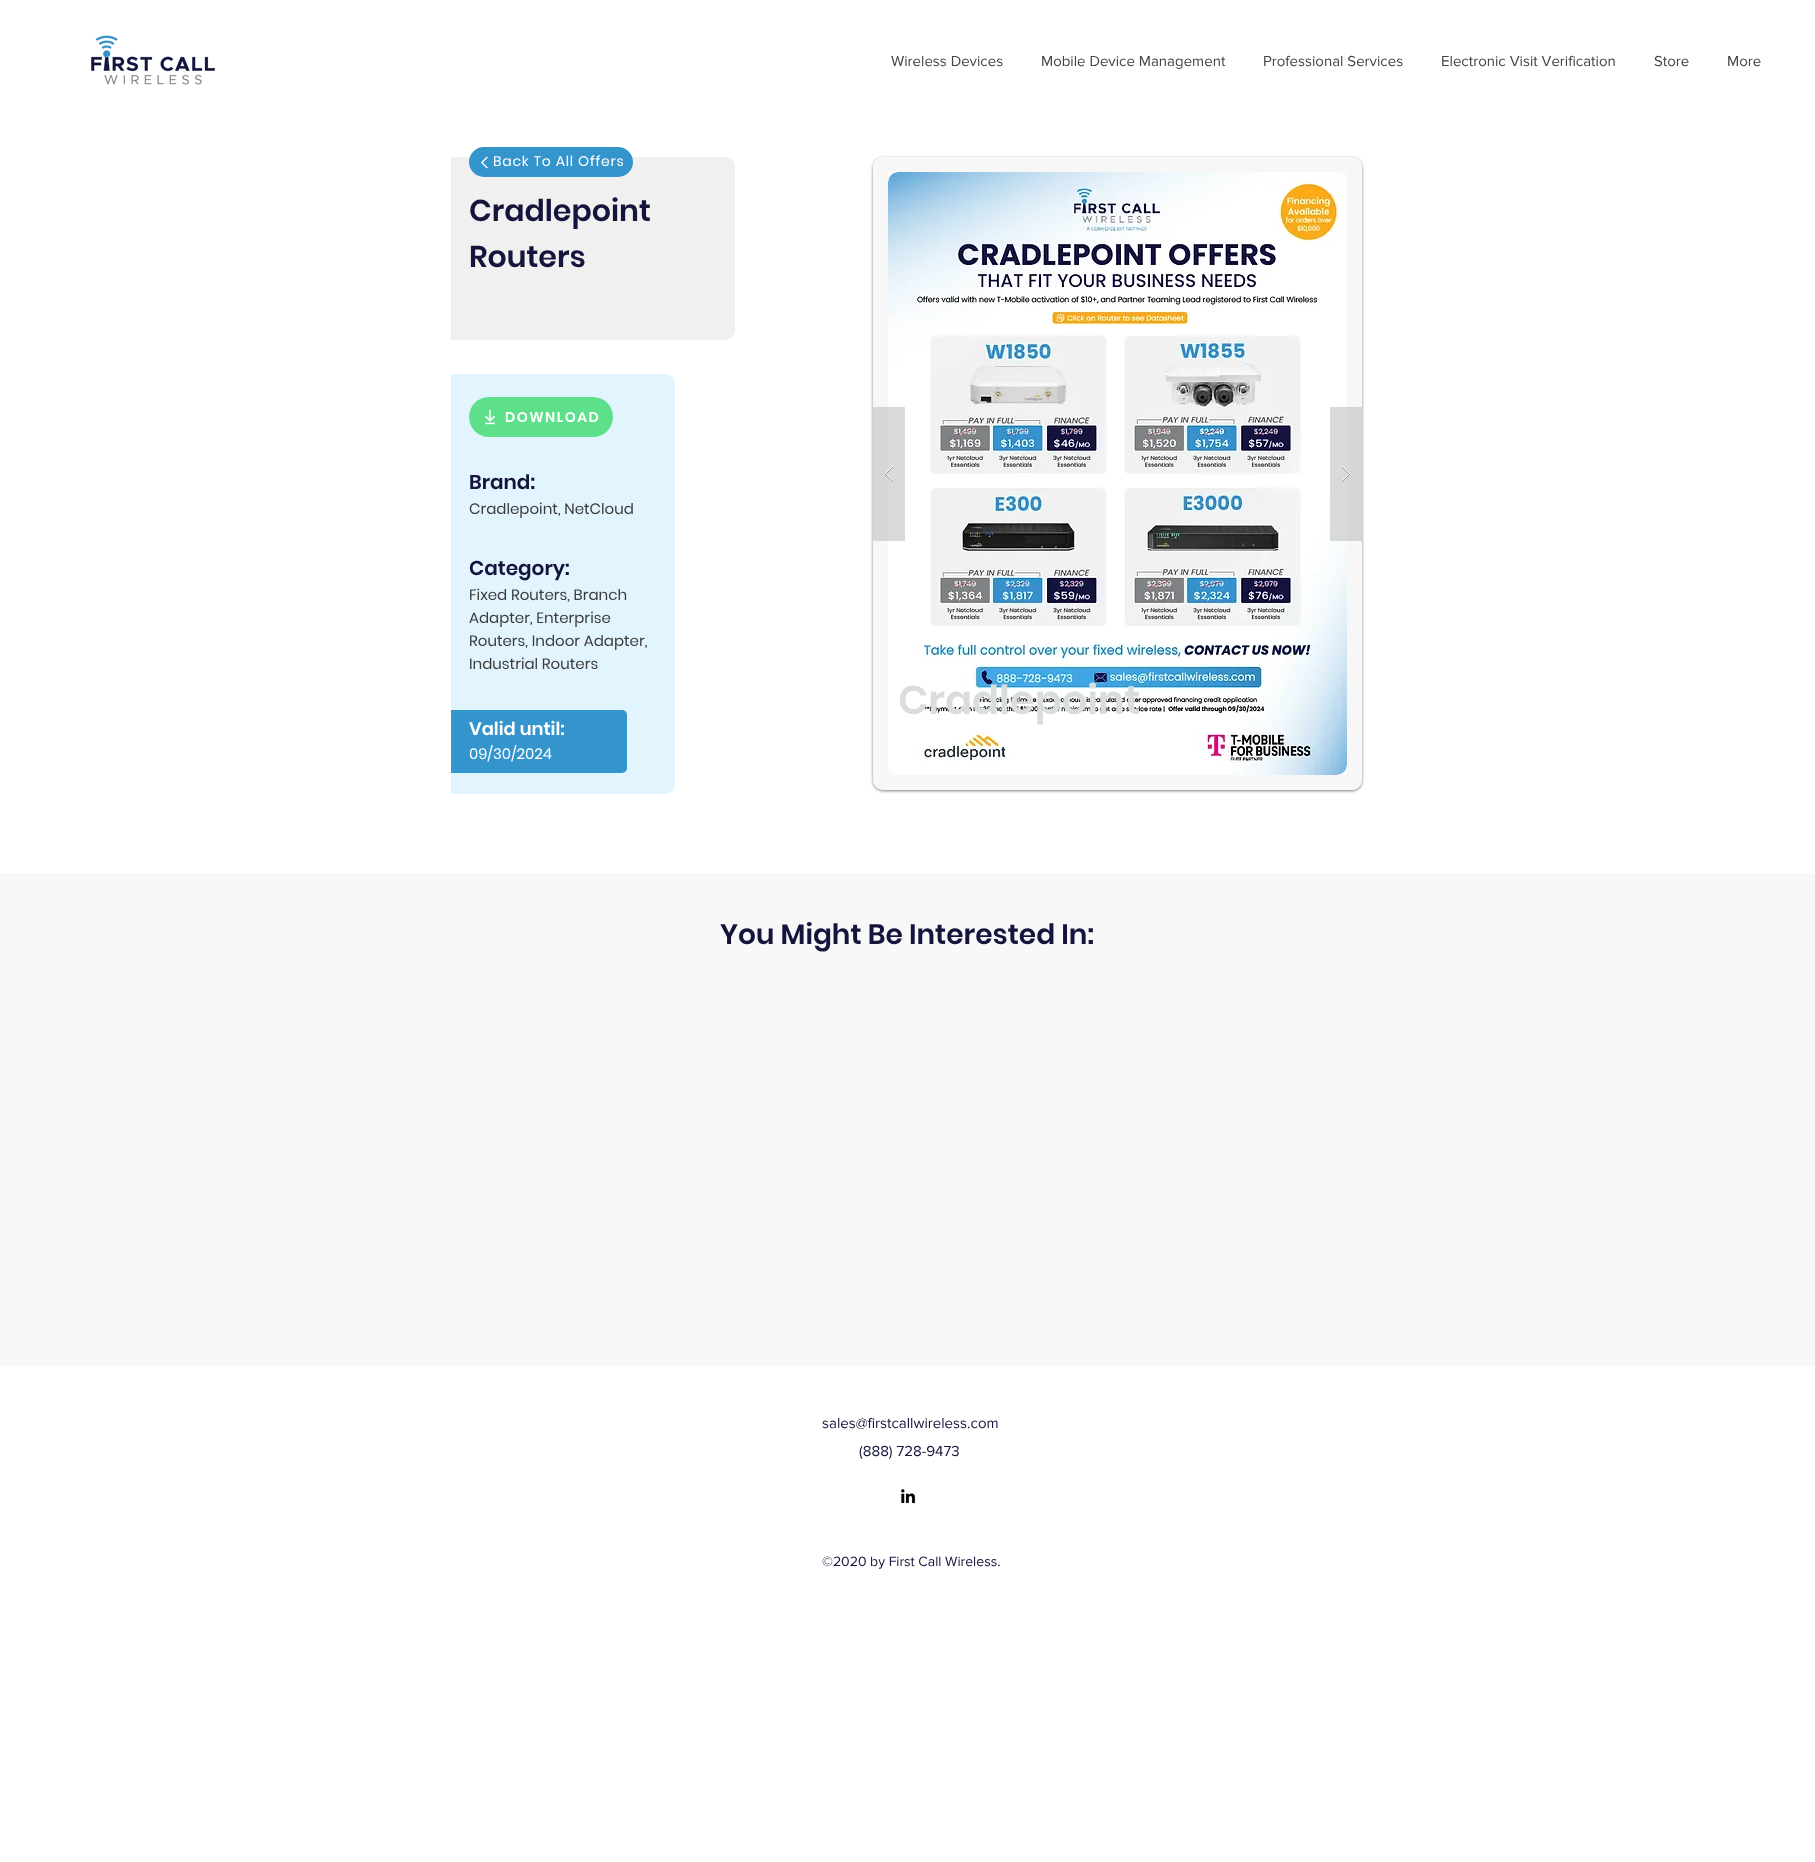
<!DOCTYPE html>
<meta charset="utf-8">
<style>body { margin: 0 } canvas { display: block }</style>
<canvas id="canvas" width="1815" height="1862"></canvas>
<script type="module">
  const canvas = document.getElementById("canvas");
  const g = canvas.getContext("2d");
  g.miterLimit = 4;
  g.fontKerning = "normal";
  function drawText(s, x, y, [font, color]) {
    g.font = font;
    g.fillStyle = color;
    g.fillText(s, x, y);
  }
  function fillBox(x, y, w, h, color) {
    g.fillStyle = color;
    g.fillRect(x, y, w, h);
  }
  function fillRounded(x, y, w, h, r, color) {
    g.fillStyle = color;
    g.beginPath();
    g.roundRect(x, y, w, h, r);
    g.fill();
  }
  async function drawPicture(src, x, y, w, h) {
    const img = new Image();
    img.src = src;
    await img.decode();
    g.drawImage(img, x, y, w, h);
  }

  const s1 = ["15px 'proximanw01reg'", "#444444"];
  const s2 = ["14px Poppins", "#FFFFFF"];
  const s3 = ["600 30px Poppins", "#14143C"];
  const s4 = ["600 14px Poppins", "#FFFFFF"];
  const s5 = ["600 20px Poppins", "#14143C"];
  const s6 = ["15px Poppins", "#3C3C3C"];
  const s7 = ["600 18px Poppins", "#FFFFFF"];
  const s8 = ["15px Poppins", "#FFFFFF"];
  const s9 = ["600 40px Poppins", "#DADDDE"];
  const s10 = ["600 28px Poppins", "#14143C"];
  const s11 = ["15px 'proximanw01reg'", "#14143C"];
  const s12 = ["14px 'proximanw01reg'", "#14143C"];

  fillBox(0, 0, 1815, 1862, "#FFFFFF");
  await drawPicture("pic1.png", 91, 35, 124, 50);
  drawText("Wireless Devices", 891, 66, s1);
  drawText("Mobile Device Management", 1041, 66, s1);
  drawText("Professional Services", 1263, 66, s1);
  drawText("Electronic Visit Verification", 1441, 66, s1);
  drawText("Store", 1654, 66, s1);
  drawText("More", 1727, 66, s1);
  g.fillStyle = "#F0F0F0";
  g.beginPath();
  g.roundRect(451, 157, 284, 183, [0, 10, 10, 0]);
  g.fill();
  fillRounded(469, 147, 164, 30, 15, "#3494CC");
  await drawPicture("pic2.png", 481, 156, 7, 13);
  g.letterSpacing = "0.75px";
  drawText("Back To All Offers", 493, 166, s2);
  g.letterSpacing = "0px";
  drawText("Cradlepoint", 469, 221, s3);
  drawText("Routers", 469, 267, s3);
  g.fillStyle = "#E2F5FF";
  g.beginPath();
  g.roundRect(451, 374, 224, 420, [0, 10, 10, 0]);
  g.fill();
  fillRounded(469, 397, 144, 40, 20, "#5EE08A");
  await drawPicture("pic3.png", 485, 409, 10, 16);
  g.letterSpacing = "1.5px";
  drawText("DOWNLOAD", 505, 422, s4);
  g.letterSpacing = "0px";
  drawText("Brand:", 469, 489, s5);
  drawText("Cradlepoint, NetCloud", 469, 514, s6);
  drawText("Category:", 469, 575, s5);
  drawText("Fixed Routers, Branch", 469, 600, s6);
  drawText("Adapter, Enterprise", 469, 623, s6);
  drawText("Routers, Indoor Adapter,", 469, 646, s6);
  drawText("Industrial Routers", 469, 669, s6);
  g.fillStyle = "#3494CC";
  g.beginPath();
  g.roundRect(451, 710, 176, 63, [0, 5, 5, 0]);
  g.fill();
  drawText("Valid until:", 469, 735, s7);
  drawText("09/30/2024", 469, 759, s8);
  g.save();
  g.beginPath();
  g.moveTo(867, 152);
  g.lineTo(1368, 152);
  g.lineTo(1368, 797);
  g.lineTo(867, 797);
  g.closePath();
  g.moveTo(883, 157);
  g.lineTo(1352, 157);
  g.bezierCurveTo(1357.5, 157, 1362, 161.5, 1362, 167);
  g.lineTo(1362, 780);
  g.bezierCurveTo(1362, 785.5, 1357.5, 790, 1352, 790);
  g.lineTo(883, 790);
  g.bezierCurveTo(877.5, 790, 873, 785.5, 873, 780);
  g.lineTo(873, 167);
  g.bezierCurveTo(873, 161.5, 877.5, 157, 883, 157);
  g.closePath();
  g.clip("evenodd");
  g.fillStyle = "rgba(0, 0, 0, 0.5)";
  g.filter = "blur(1.5px)";
  g.beginPath();
  g.roundRect(873, 158, 489, 633, 10);
  g.fill();
  g.filter = "none";
  g.restore();
  fillRounded(873, 157, 489, 633, 10, "rgba(230, 230, 230, 0.15)");
  await drawPicture("pic6.png", 888, 172, 459, 603);
  g.beginPath();
  g.roundRect(880.5, 164.5, 474, 618, 2.5);
  g.strokeStyle = "rgba(230, 230, 230, 0.15)";
  g.lineWidth = 15;
  g.stroke();
  fillBox(873, 407, 32, 134, "rgba(181, 181, 181, 0.5)");
  await drawPicture("pic4.png", 885, 466, 8, 16);
  fillBox(1330, 407, 32, 134, "rgba(181, 181, 181, 0.5)");
  await drawPicture("pic5.png", 1342, 466, 8, 16);
  drawText("Cradlepoint", 898, 714, s9);
  fillBox(0, 873, 1815, 493, "#F8F8F8");
  drawText("You Might Be Interested In:", 720, 944, s10);
  drawText("sales@firstcallwireless.com", 822, 1428, s11);
  drawText("(888) 728-9473", 859, 1456, s11);
  await drawPicture("pic7.png", 901, 1489, 15, 15);
  drawText("©2020 by First Call Wireless.", 822, 1566, s12);
</script>
